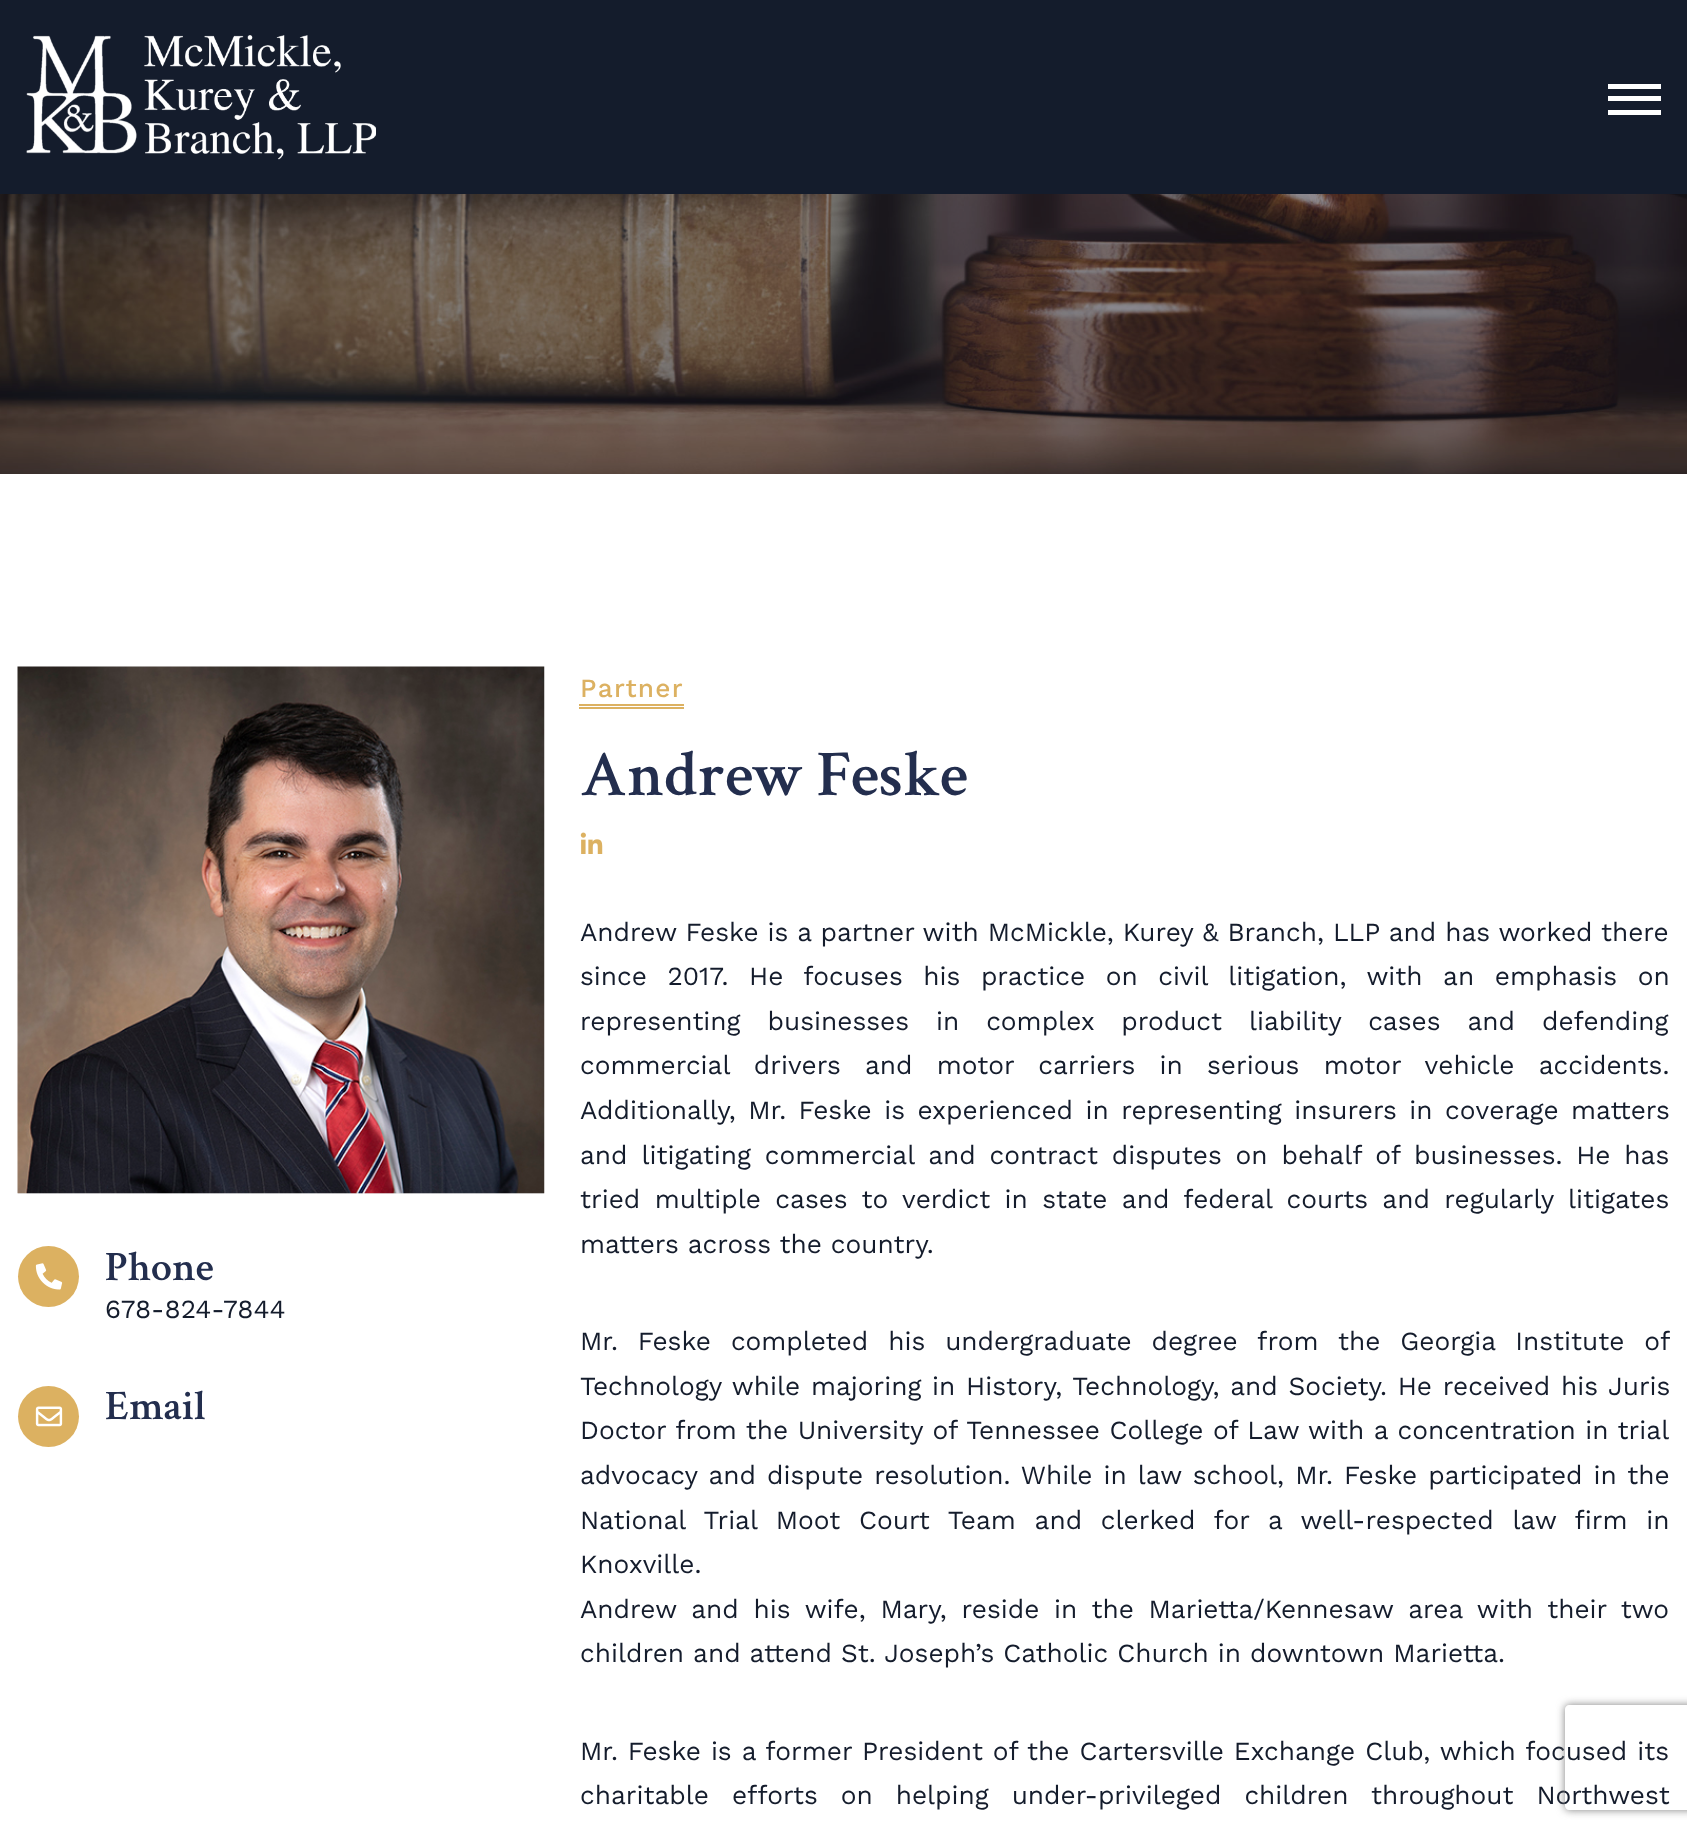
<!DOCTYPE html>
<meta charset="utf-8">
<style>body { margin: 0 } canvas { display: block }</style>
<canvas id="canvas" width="1687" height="1834"></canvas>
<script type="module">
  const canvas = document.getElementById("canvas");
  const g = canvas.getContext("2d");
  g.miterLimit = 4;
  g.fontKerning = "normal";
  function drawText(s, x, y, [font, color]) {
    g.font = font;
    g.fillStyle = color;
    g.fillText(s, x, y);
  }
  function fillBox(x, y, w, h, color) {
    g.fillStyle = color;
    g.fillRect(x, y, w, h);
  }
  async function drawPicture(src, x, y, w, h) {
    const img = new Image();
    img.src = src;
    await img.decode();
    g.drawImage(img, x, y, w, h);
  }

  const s1 = ["600 42px Crimson Text", "#232E4E"];
  const s2 = ["26.25px Work Sans", "#141C2C"];
  const s3 = ["500 26.25px Work Sans", "#DCB161"];
  const s4 = ["600 65.5px Crimson Text", "#232E4E"];

  fillBox(0, 0, 1687, 1834, "#FFFFFF");
  fillBox(0, 0, 1687, 194, "#141C2C");
  await drawPicture("pic1.png", 26, 35, 350, 125);
  fillBox(1608, 84, 53, 5, "#FFFFFF");
  fillBox(1608, 96, 53, 5, "#FFFFFF");
  fillBox(1608, 110, 53, 5, "#FFFFFF");
  await drawPicture("pic2.png", 0, 194, 1687, 280);
  fillBox(18, 1193, 526, 1, "#F1F1F1");
  await drawPicture("pic3.png", 17, 666, 528, 528);
  g.fillStyle = "#DCB161";
  g.beginPath();
  g.arc(48.5, 1276.5, 30.5, 0, Math.PI * 2);
  g.fill();
  await drawPicture("pic4.png", 35, 1263, 28, 27);
  drawText("Phone", 105, 1280, s1);
  drawText("678-824-7844", 105, 1318, s2);
  g.fillStyle = "#DCB161";
  g.beginPath();
  g.arc(48.5, 1416.5, 30.5, 0, Math.PI * 2);
  g.fill();
  await drawPicture("pic5.png", 35, 1406, 28, 21);
  drawText("Email", 105, 1419, s1);
  fillBox(579, 704, 105, 2, "#DCB161");
  g.letterSpacing = "1.25px";
  drawText("Partner", 580, 697, s3);
  fillBox(579, 707, 105, 2, "#DCB161");
  g.letterSpacing = "0px";
  drawText("Andrew Feske", 580, 795, s4);
  await drawPicture("pic6.png", 580, 832, 23, 22);
  drawText("Andrew Feske is a partner with McMickle, Kurey & Branch, LLP and has worked there", 580, 941, s2);
  g.wordSpacing = "11.6px";
  drawText("since 2017. He focuses his practice on civil litigation, with an emphasis on", 580, 985, s2);
  g.wordSpacing = "18px";
  drawText("representing businesses in complex product liability cases and defending", 580, 1030, s2);
  g.wordSpacing = "15.25px";
  drawText("commercial drivers and motor carriers in serious motor vehicle accidents.", 580, 1074, s2);
  g.wordSpacing = "3.5px";
  drawText("Additionally, Mr. Feske is experienced in representing insurers in coverage matters", 580, 1119, s2);
  g.wordSpacing = "4.9px";
  drawText("and litigating commercial and contract disputes on behalf of businesses. He has", 580, 1164, s2);
  g.wordSpacing = "5.4px";
  drawText("tried multiple cases to verdict in state and federal courts and regularly litigates", 580, 1208, s2);
  g.wordSpacing = "0px";
  drawText("matters across the country.", 580, 1253, s2);
  g.wordSpacing = "11px";
  drawText("Mr. Feske completed his undergraduate degree from the Georgia Institute of", 580, 1350, s2);
  g.wordSpacing = "1.75px";
  drawText("Technology while majoring in History, Technology, and Society. He received his Juris", 580, 1395, s2);
  g.wordSpacing = "0.6px";
  drawText("Doctor from the University of Tennessee College of Law with a concentration in trial", 580, 1439, s2);
  g.wordSpacing = "2.1px";
  drawText("advocacy and dispute resolution. While in law school, Mr. Feske participated in the", 580, 1484, s2);
  g.wordSpacing = "9.75px";
  drawText("National Trial Moot Court Team and clerked for a well-respected law firm in", 580, 1529, s2);
  g.wordSpacing = "0px";
  drawText("Knoxville.", 580, 1573, s2);
  g.wordSpacing = "5.75px";
  drawText("Andrew and his wife, Mary, reside in the Marietta/Kennesaw area with their two", 580, 1618, s2);
  g.wordSpacing = "0px";
  drawText("children and attend St. Joseph’s Catholic Church in downtown Marietta.", 580, 1662, s2);
  g.wordSpacing = "1px";
  drawText("Mr. Feske is a former President of the Cartersville Exchange Club, which focused its", 580, 1760, s2);
  g.wordSpacing = "14px";
  drawText("charitable efforts on helping under-privileged children throughout Northwest", 580, 1804, s2);
  g.save();
  g.beginPath();
  g.moveTo(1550, 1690);
  g.lineTo(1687, 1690);
  g.lineTo(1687, 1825);
  g.lineTo(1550, 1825);
  g.closePath();
  g.moveTo(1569, 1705);
  g.lineTo(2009, 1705);
  g.bezierCurveTo(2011, 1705, 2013, 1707, 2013, 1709);
  g.lineTo(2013, 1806);
  g.bezierCurveTo(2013, 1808, 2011, 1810, 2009, 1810);
  g.lineTo(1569, 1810);
  g.bezierCurveTo(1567, 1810, 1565, 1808, 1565, 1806);
  g.lineTo(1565, 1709);
  g.bezierCurveTo(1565, 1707, 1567, 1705, 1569, 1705);
  g.closePath();
  g.clip("evenodd");
  g.fillStyle = "#808080";
  g.filter = "blur(4.5px)";
  g.beginPath();
  g.roundRect(1565, 1705, 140, 105, 4);
  g.fill();
  g.filter = "none";
  g.restore();
</script>
